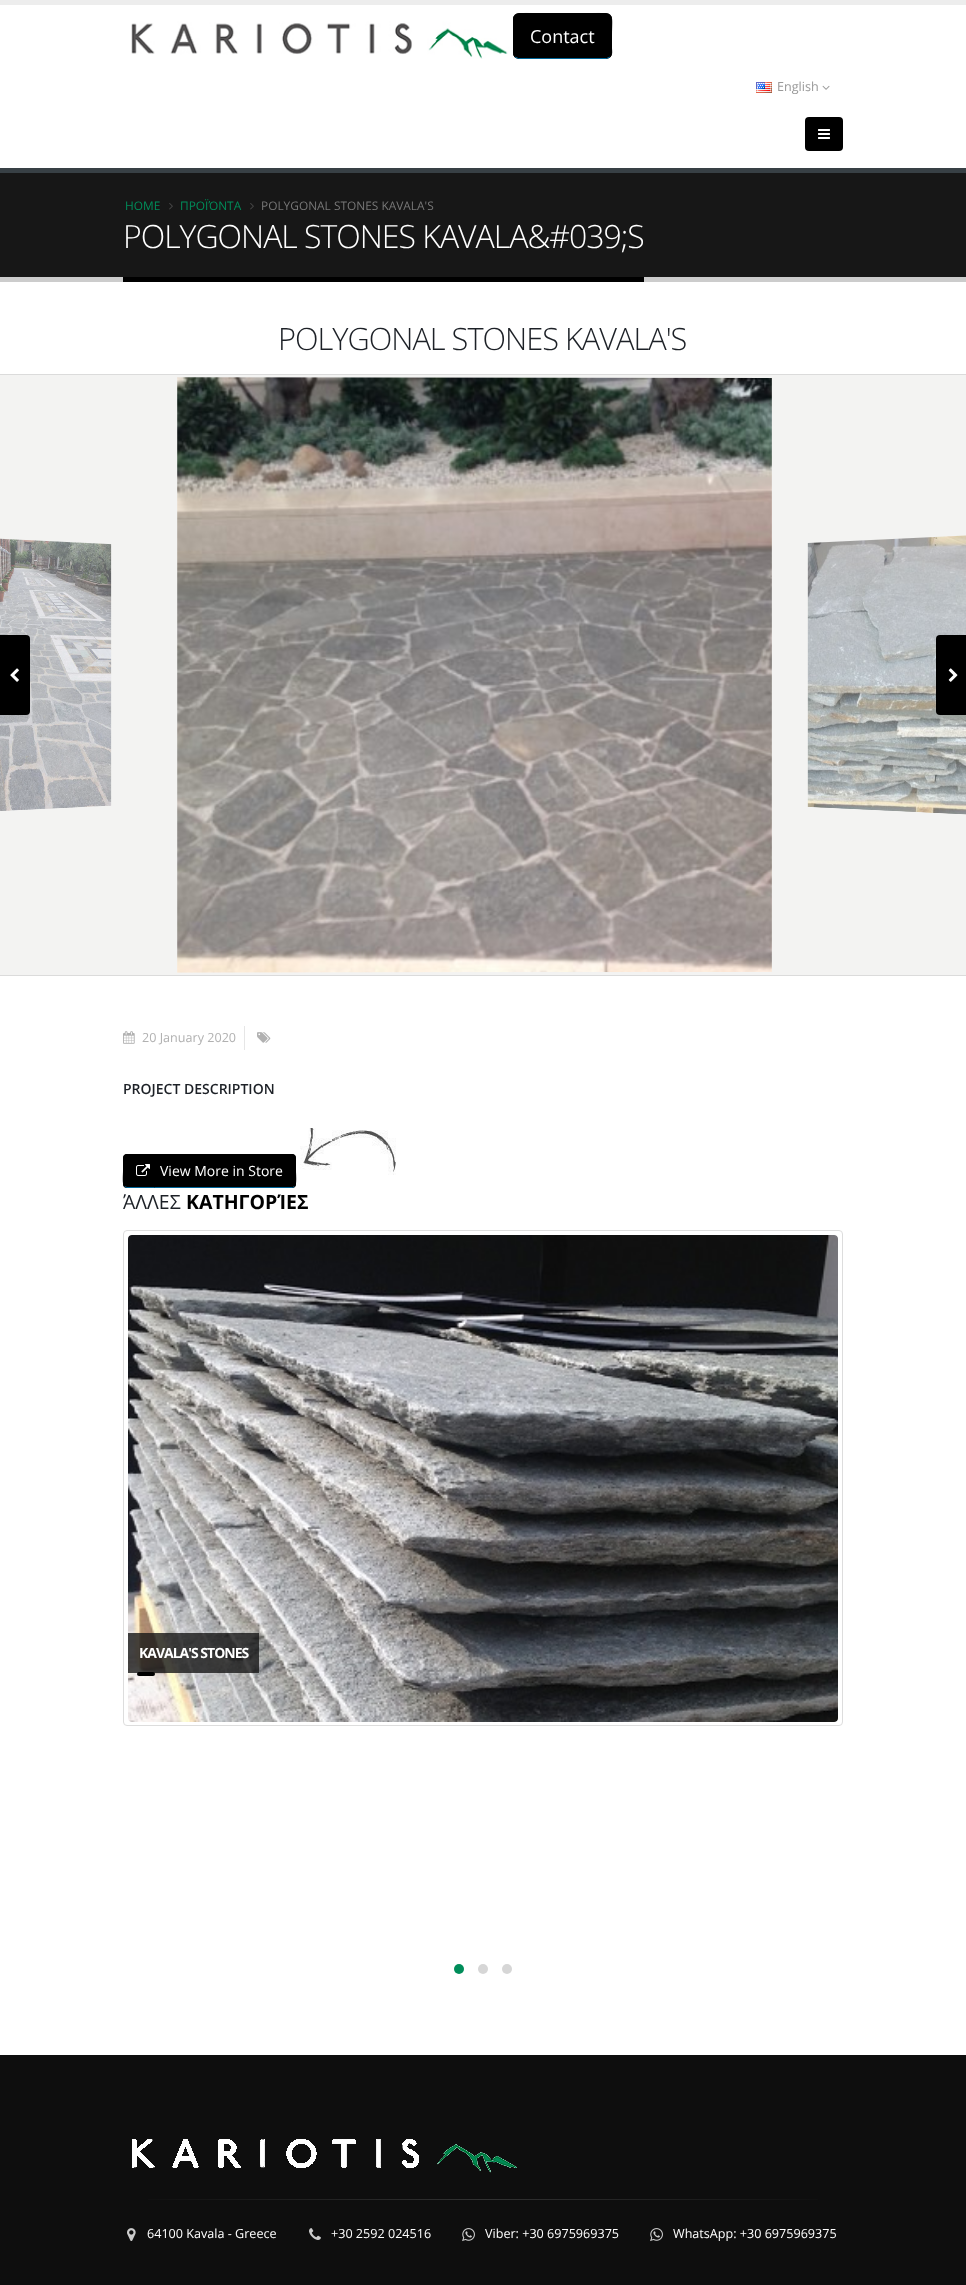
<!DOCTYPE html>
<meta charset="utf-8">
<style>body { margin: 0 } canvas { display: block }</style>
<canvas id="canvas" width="966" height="2285"></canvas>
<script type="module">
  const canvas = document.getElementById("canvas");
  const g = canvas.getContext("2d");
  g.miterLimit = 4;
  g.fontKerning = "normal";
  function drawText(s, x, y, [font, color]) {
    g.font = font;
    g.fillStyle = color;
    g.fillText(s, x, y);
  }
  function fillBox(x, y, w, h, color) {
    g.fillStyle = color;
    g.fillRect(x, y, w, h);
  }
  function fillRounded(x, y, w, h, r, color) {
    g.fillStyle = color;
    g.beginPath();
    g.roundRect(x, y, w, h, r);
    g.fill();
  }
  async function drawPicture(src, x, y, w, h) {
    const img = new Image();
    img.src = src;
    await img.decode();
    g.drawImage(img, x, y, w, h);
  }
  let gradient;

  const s1 = ["18px Open Sans", "#FFFFFF"];
  const s2 = ["12.6px Open Sans", "#999999"];
  const s3 = ["11.9px Open Sans", "#008D5A"];
  const s4 = ["11.9px Open Sans", "#777777"];
  const s5 = ["300 32px Open Sans", "#FFFFFF"];
  const s6 = ["300 30.75px Open Sans", "#1D2127"];
  const s7 = ["12.6px Open Sans", "#B1B1B1"];
  const s8 = ["600 14px Open Sans", "#1D2127"];
  const s9 = ["14px Open Sans", "#FFFFFF"];
  const s10 = ["19.5px Open Sans", "#1D2127"];
  const s11 = ["bold 19.5px Open Sans", "#000000"];
  const s12 = ["bold 14px Open Sans", "#FFFFFF"];
  const s13 = ["12.6px Open Sans", "#FFFFFF"];

  fillBox(0, 0, 966, 2285, "#FFFFFF");
  fillBox(0, 0, 966, 5, "#EDEDED");
  fillRounded(513, 13, 99, 46, 6, "#000000");
  g.beginPath();
  g.moveTo(610, 57);
  g.lineTo(606.5, 58.5);
  g.lineTo(518.5, 58.5);
  g.lineTo(515, 57);
  g.strokeStyle = "#006699";
  g.stroke();
  g.beginPath();
  g.moveTo(515, 57);
  g.bezierCurveTo(512.5, 54.5, 513.5, 50.5, 513.5, 47.5);
  g.lineTo(513.5, 36);
  g.bezierCurveTo(513.5, 12, 509.5, 13.5, 533.5, 13.5);
  g.lineTo(591.5, 13.5);
  g.bezierCurveTo(615.5, 13.5, 611.5, 12, 611.5, 36);
  g.lineTo(611.5, 47.5);
  g.bezierCurveTo(611.5, 50.5, 612.5, 54.5, 610, 57);
  g.strokeStyle = "#000000";
  g.stroke();
  await drawPicture("pic1.png", 131, 18, 382, 41);
  drawText("Contact", 530, 43, s1);
  await drawPicture("pic2.png", 756, 82, 16, 11);
  drawText("English", 777, 91, s2);
  await drawPicture("pic3.png", 822, 85, 8, 5);
  fillRounded(805, 117, 38, 34, 4, "#000000");
  await drawPicture("pic4.png", 818, 129, 12, 10);
  fillBox(0, 173, 966, 104, "#171717");
  fillBox(0, 168, 966, 5, "#384045");
  fillBox(0, 277, 966, 5, "#CCCCCC");
  drawText("HOME", 125, 210, s3);
  await drawPicture("pic5.png", 169, 203, 4, 7);
  drawText("ΠΡΟΪΌΝΤΑ", 180, 210, s3);
  await drawPicture("pic5.png", 250, 203, 4, 7);
  drawText("POLYGONAL STONES KAVALA'S", 261, 210, s4);
  fillBox(123, 277, 521, 5, "#000000");
  g.letterSpacing = "-1px";
  drawText("POLYGONAL STONES KAVALA&#039;S", 123, 248, s5);
  drawText("POLYGONAL STONES KAVALA'S", 278, 350, s6);
  fillBox(0, 374, 966, 1, "#DBDBDB");
  fillBox(0, 375, 966, 600, "#F3F3F2");
  await drawPicture("pic6.png", 0, 538, 112, 273);
  await drawPicture("pic7.png", 177, 377, 595, 596);
  await drawPicture("pic8.png", 807, 535, 159, 280);
  g.fillStyle = "#000000";
  g.beginPath();
  g.roundRect(0, 635, 30, 80, [0, 4, 4, 0]);
  g.fill();
  await drawPicture("pic9.png", 10, 668, 9, 14);
  g.beginPath();
  g.roundRect(936, 635, 30, 80, [4, 0, 0, 4]);
  g.fill();
  await drawPicture("pic10.png", 948, 668, 10, 14);
  fillBox(0, 975, 966, 1, "#DBDBDB");
  fillBox(244, 1026, 1, 24, "#E6E6E6");
  await drawPicture("pic11.png", 123, 1031, 12, 13);
  g.letterSpacing = "0px";
  drawText("20 January 2020", 142, 1042, s7);
  await drawPicture("pic12.png", 257, 1032, 14, 11);
  drawText("PROJECT DESCRIPTION", 123, 1094, s8);
  fillRounded(123, 1154, 173, 34, 4, "#000000");
  g.beginPath();
  g.moveTo(294.5, 1186.5);
  g.lineTo(292.5, 1187.5);
  g.lineTo(154.5, 1187.5);
  g.lineTo(127, 1187.5);
  g.lineTo(124.5, 1186.5);
  g.strokeStyle = "#006699";
  g.stroke();
  g.beginPath();
  g.moveTo(124.5, 1186.5);
  g.bezierCurveTo(122.5, 1184, 123.5, 1174, 123.5, 1171);
  g.lineTo(123.5, 1162.5);
  g.bezierCurveTo(123.5, 1159.5, 123, 1154.5, 127, 1154.5);
  g.lineTo(292, 1154.5);
  g.bezierCurveTo(296, 1154.5, 295.5, 1159.5, 295.5, 1162.5);
  g.lineTo(295.5, 1171);
  g.bezierCurveTo(295.5, 1174, 296.5, 1184, 294.5, 1186.5);
  g.strokeStyle = "#000000";
  g.stroke();
  await drawPicture("pic13.png", 136, 1164, 14, 12);
  drawText("View More in Store", 160, 1176, s9);
  await drawPicture("pic14.png", 300, 1128, 96, 47);
  drawText("ΆΛΛΕΣ", 123, 1209, s10);
  drawText("ΚΑΤΗΓΟΡΊΕΣ", 186, 1209, s11);
  g.beginPath();
  g.roundRect(123.5, 1230.5, 719, 495, 3.5);
  g.strokeStyle = "#DDDDDD";
  g.stroke();
  await drawPicture("pic15.png", 128, 1235, 710, 487);
  fillBox(128, 1633, 131, 40, "rgba(23, 23, 23, 0.8)");
  g.letterSpacing = "-1px";
  drawText("KAVALA'S STONES", 139, 1658, s12);
  fillRounded(137, 1672, 18, 4, 2, "#000000");
  g.fillStyle = "#008D5A";
  g.beginPath();
  g.arc(459, 1969, 5, 0, Math.PI * 2);
  g.fill();
  g.fillStyle = "#D6D6D6";
  g.beginPath();
  g.arc(483, 1969, 5, 0, Math.PI * 2);
  g.fill();
  g.beginPath();
  g.arc(507, 1969, 5, 0, Math.PI * 2);
  g.fill();
  fillBox(0, 2055, 966, 230, "#0E0E0E");
  await drawPicture("pic16.png", 132, 2139, 385, 34);
  gradient = g.createLinearGradient(123, 2200, 843, 2200);
  gradient.addColorStop(0, "#0E0E0E");
  gradient.addColorStop(0.5, "#323232");
  gradient.addColorStop(1, "#0E0E0E");
  g.fillStyle = gradient;
  g.fillRect(148, 2199, 670, 1);
  await drawPicture("pic17.png", 127, 2228, 9, 13);
  g.letterSpacing = "0px";
  drawText("64100 Kavala - Greece", 147, 2238, s13);
  await drawPicture("pic18.png", 309, 2228, 12, 12);
  drawText("+30 2592 024516", 331, 2238, s13);
  await drawPicture("pic19.png", 462, 2228, 13, 14);
  drawText("Viber: +30 6975969375", 485, 2238, s13);
  await drawPicture("pic19.png", 650, 2228, 13, 14);
  drawText("WhatsApp: +30 6975969375", 673, 2238, s13);
</script>
